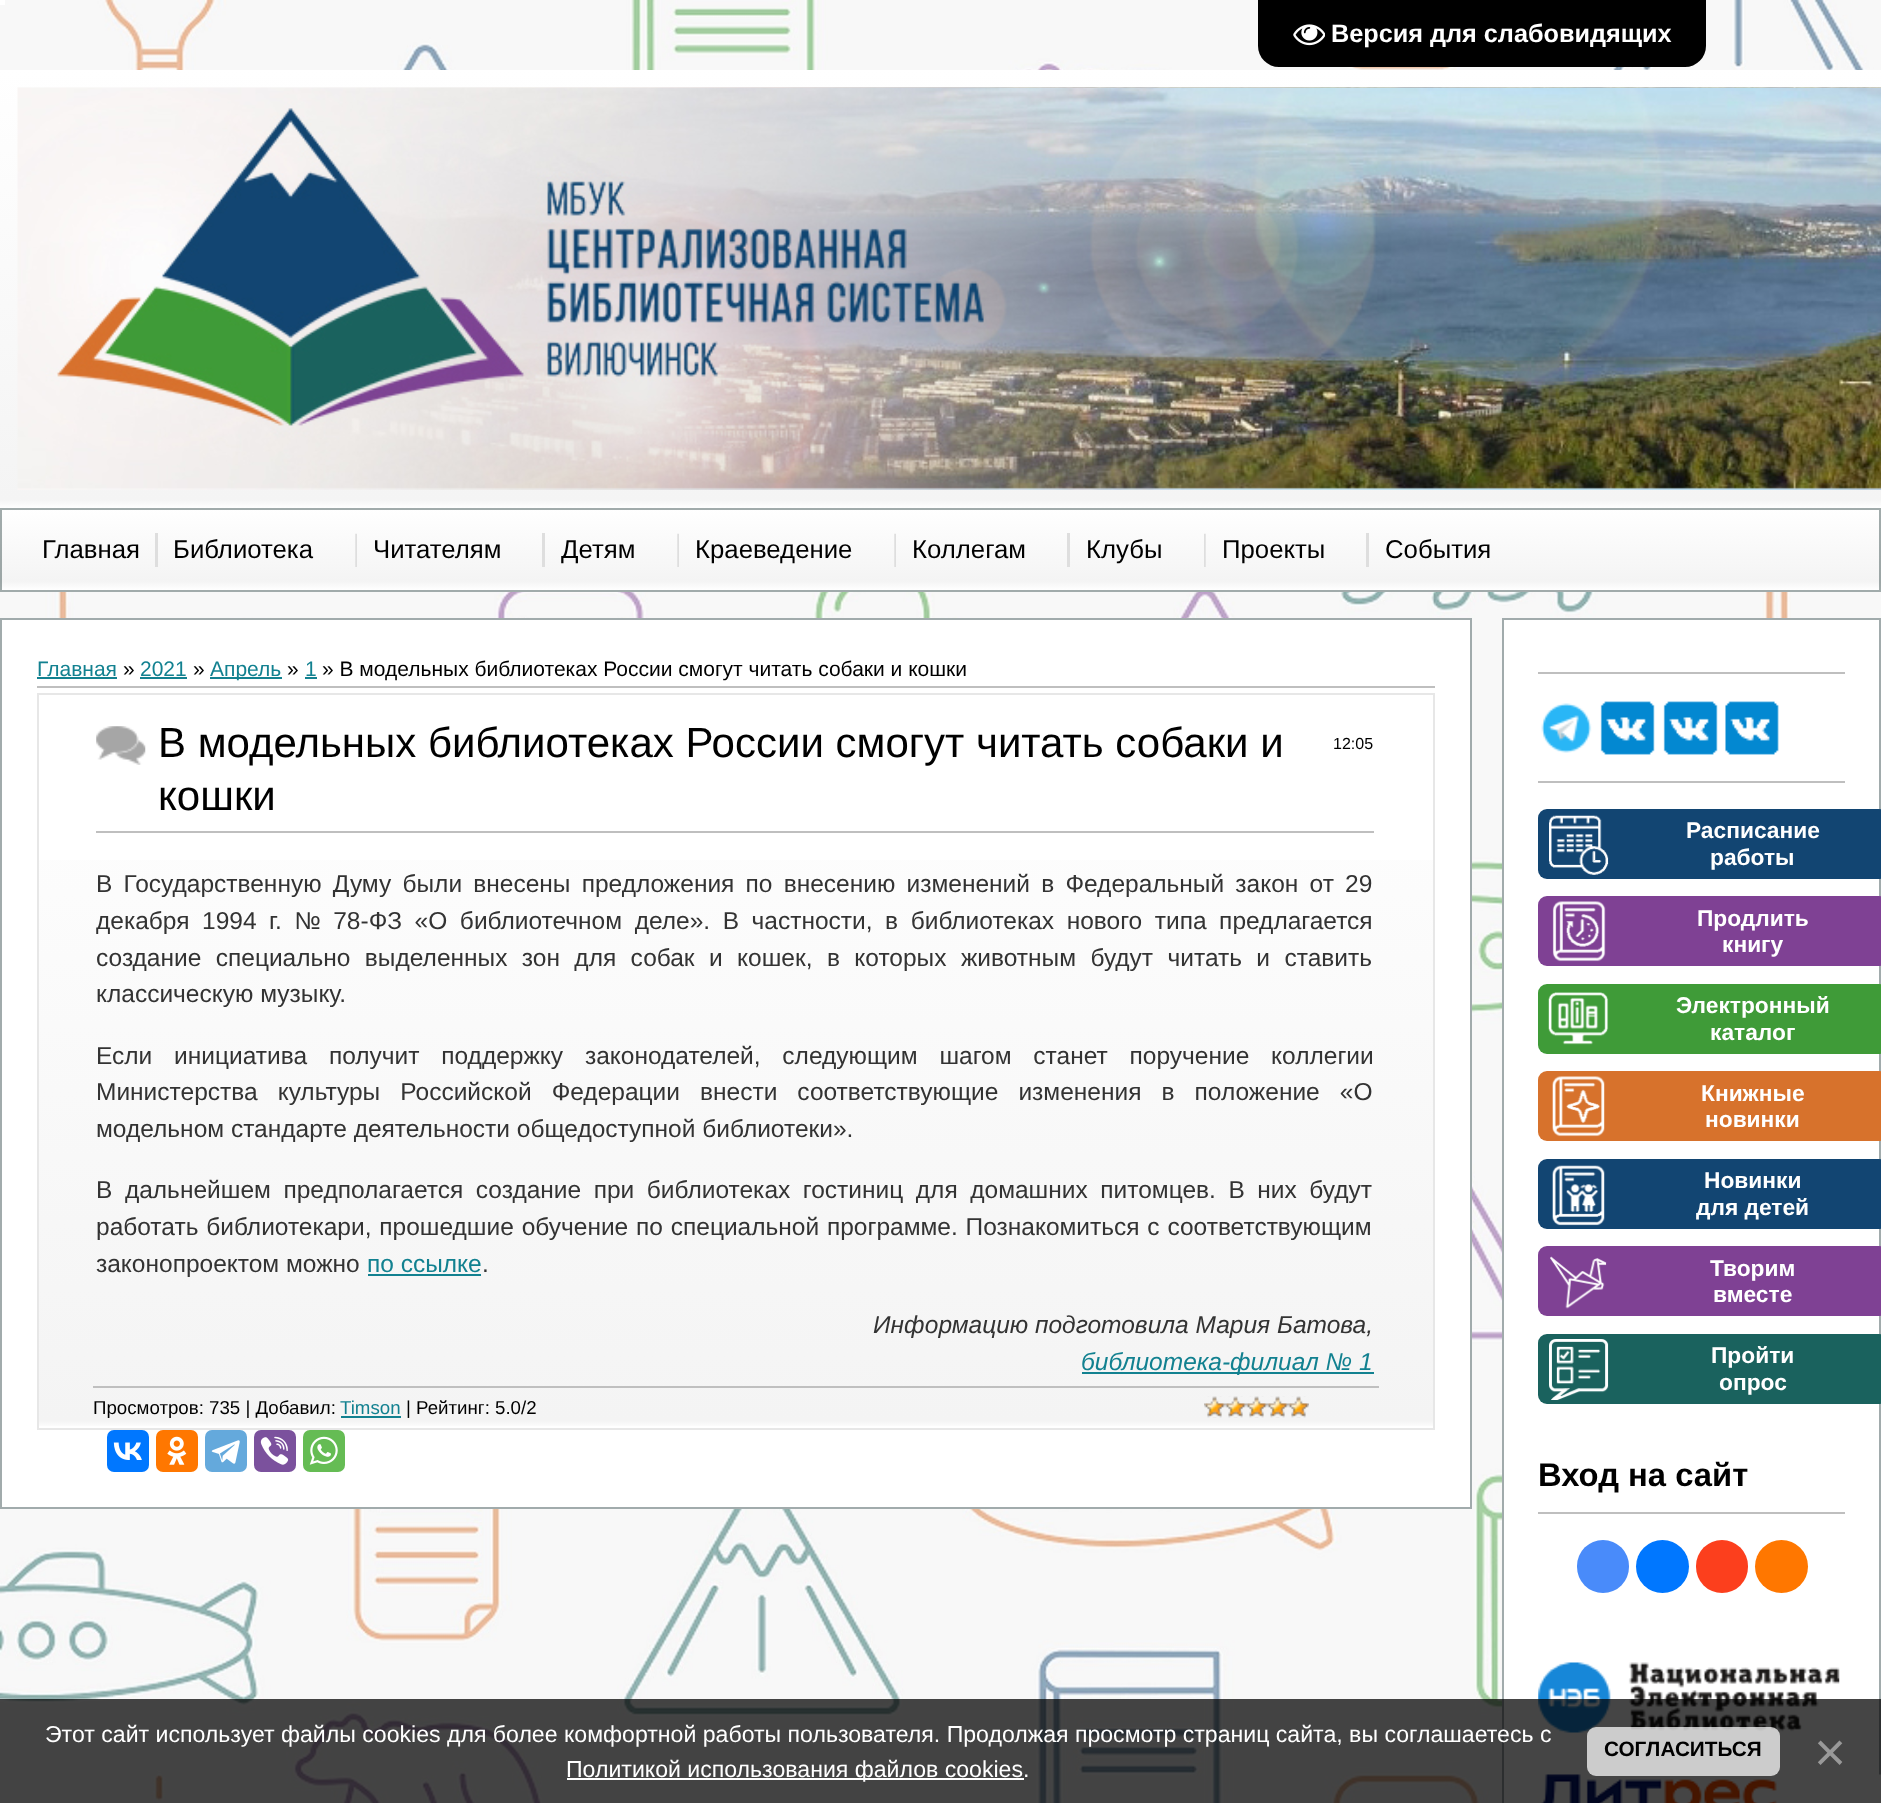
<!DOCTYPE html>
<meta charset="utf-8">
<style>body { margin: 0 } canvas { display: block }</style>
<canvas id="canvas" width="1881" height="1803"></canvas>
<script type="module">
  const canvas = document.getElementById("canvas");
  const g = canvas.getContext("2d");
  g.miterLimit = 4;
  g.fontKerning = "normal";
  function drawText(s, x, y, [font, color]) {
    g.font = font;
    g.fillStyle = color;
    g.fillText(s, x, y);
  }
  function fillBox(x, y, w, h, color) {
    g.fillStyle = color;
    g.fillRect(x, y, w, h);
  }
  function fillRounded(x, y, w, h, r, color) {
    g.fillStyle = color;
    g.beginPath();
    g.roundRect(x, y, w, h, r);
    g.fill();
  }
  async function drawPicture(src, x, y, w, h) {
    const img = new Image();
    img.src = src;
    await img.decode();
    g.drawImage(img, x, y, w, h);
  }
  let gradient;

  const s1 = ["bold 25.25px Liberation Sans", "#FFFFFF"];
  const s2 = ["25.75px Liberation Sans", "#000000"];
  const s3 = ["21px Liberation Sans", "#128190"];
  const s4 = ["21px Liberation Sans", "#000000"];
  const s5 = ["42px Liberation Sans", "#000000"];
  const s6 = ["16px Liberation Sans", "#000000"];
  const s7 = ["24.5px Liberation Sans", "#333333"];
  const s8 = ["24.5px Liberation Sans", "#128190"];
  const s9 = ["italic 24.5px Liberation Sans", "#333333"];
  const s10 = ["italic 24.5px Liberation Sans", "#128190"];
  const s11 = ["18.7px Liberation Sans", "#000000"];
  const s12 = ["18.7px Liberation Sans", "#128190"];
  const s13 = ["bold 22.75px Liberation Sans", "#FFFFFF"];
  const s14 = ["bold 32.75px Liberation Sans", "#000000"];
  const s15 = ["23.1px Liberation Sans", "#FFFFFF"];
  const s16 = ["bold 20.75px Liberation Sans", "#000000"];
  const s17 = ["55px Liberation Sans", "#999999"];

  fillBox(0, 0, 1881, 1803, "#FFFFFF");
  await drawPicture("pic2.png", 0, 0, 1881, 1803);
  g.fillStyle = "#000000";
  g.beginPath();
  g.roundRect(1258, 0, 448, 67, [0, 0, 21, 21]);
  g.fill();
  await drawPicture("pic1.png", 1293, 24, 32, 22);
  drawText("Версия для слабовидящих", 1331, 42, s1);
  fillBox(0, 0, 5, 5, "#FFFFFF");
  gradient = g.createLinearGradient(941, 508, 941, 70);
  gradient.addColorStop(0, "#FFFFFF");
  gradient.addColorStop(0.02, "#F4F4F4");
  gradient.addColorStop(1, "#FFFFFF");
  g.fillStyle = gradient;
  g.fillRect(0, 70, 1881, 438);
  await drawPicture("pic3.png", 17, 87, 1864, 403);
  gradient = g.createLinearGradient(941, 509, 941, 429);
  gradient.addColorStop(0, "#FFFFFF");
  gradient.addColorStop(0.11, "#F4F4F4");
  gradient.addColorStop(1, "#FFFFFF");
  g.fillStyle = gradient;
  g.fillRect(0, 508, 1881, 1);
  gradient = g.createLinearGradient(941, 590, 941, 509);
  gradient.addColorStop(0, "#FFFFFF");
  gradient.addColorStop(0.11, "#F4F4F4");
  gradient.addColorStop(1, "#FFFFFF");
  g.fillStyle = gradient;
  g.fillRect(0, 509, 1881, 81);
  gradient = g.createLinearGradient(941, 670, 941, 590);
  gradient.addColorStop(0, "#FFFFFF");
  gradient.addColorStop(0.11, "#F4F4F4");
  gradient.addColorStop(1, "#FFFFFF");
  g.fillStyle = gradient;
  g.fillRect(0, 590, 1881, 2);
  g.strokeStyle = "rgba(67, 87, 88, 0.5)";
  g.lineWidth = 2;
  g.strokeRect(1, 509, 1879, 82);
  fillBox(155, 533, 3, 34, "#DEDEDE");
  drawText("Главная", 42, 558, s2);
  await drawPicture("pic4.png", 355, 533, 2, 34);
  drawText("Библиотека", 173, 558, s2);
  fillBox(542, 533, 3, 34, "#DEDEDE");
  drawText("Читателям", 373, 558, s2);
  await drawPicture("pic4.png", 677, 533, 2, 34);
  drawText("Детям", 561, 558, s2);
  await drawPicture("pic4.png", 894, 533, 2, 34);
  drawText("Краеведение", 695, 558, s2);
  fillBox(1067, 533, 3, 34, "#DEDEDE");
  drawText("Коллегам", 912, 558, s2);
  await drawPicture("pic5.png", 1204, 533, 2, 34);
  drawText("Клубы", 1086, 558, s2);
  fillBox(1366, 533, 3, 34, "#DEDEDE");
  drawText("Проекты", 1222, 558, s2);
  drawText("События", 1385, 558, s2);
  g.fillStyle = "#FFFFFF";
  g.beginPath();
  g.rect(1, 619, 1470, 889);
  g.fill();
  g.strokeStyle = "#A1ABAC";
  g.stroke();
  drawText("Главная", 37, 676, s3);
  fillBox(37, 677, 80, 2, "#128190");
  drawText("»", 123, 676, s4);
  drawText("2021", 140, 676, s3);
  fillBox(140, 677, 47, 2, "#128190");
  drawText("»", 193, 676, s4);
  fillBox(210, 677, 72, 2, "#128190");
  drawText("Апрель", 210, 676, s3);
  drawText("»", 287, 676, s4);
  drawText("1", 305, 676, s3);
  fillBox(305, 677, 12, 2, "#128190");
  drawText("» В модельных библиотеках России смогут читать собаки и кошки", 322, 676, s4);
  fillBox(37, 686, 1398, 2, "#BFBFBF");
  gradient = g.createLinearGradient(736, 1428, 736, 695);
  gradient.addColorStop(0, "#FFFFFF");
  gradient.addColorStop(0.01, "#F4F4F4");
  gradient.addColorStop(1, "#FFFFFF");
  g.fillStyle = gradient;
  g.fillRect(39, 860, 1394, 566);
  g.strokeStyle = "#E7E7E7";
  g.strokeRect(38, 694, 1396, 735);
  await drawPicture("pic6.png", 96, 726, 50, 39);
  fillBox(96, 831, 1278, 2, "#BFBFBF");
  drawText("В модельных библиотеках России смогут читать собаки и", 158, 757, s5);
  drawText("12:05", 1333, 749, s6);
  drawText("кошки", 158, 810, s5);
  g.wordSpacing = "4.4px";
  drawText("В Государственную Думу были внесены предложения по внесению изменений в Федеральный закон от 29", 96, 892, s7);
  g.wordSpacing = "5.75px";
  drawText("декабря 1994 г. № 78-ФЗ «О библиотечном деле». В частности, в библиотеках нового типа предлагается", 96, 929, s7);
  g.wordSpacing = "7.6px";
  drawText("создание специально выделенных зон для собак и кошек, в которых животным будут читать и ставить", 96, 966, s7);
  g.wordSpacing = "0px";
  drawText("классическую музыку.", 96, 1002, s7);
  g.wordSpacing = "15px";
  drawText("Если инициатива получит поддержку законодателей, следующим шагом станет поручение коллегии", 96, 1064, s7);
  g.wordSpacing = "13.25px";
  drawText("Министерства культуры Российской Федерации внести соответствующие изменения в положение «О", 96, 1100, s7);
  g.wordSpacing = "0px";
  drawText("модельном стандарте деятельности общедоступной библиотеки».", 96, 1137, s7);
  g.wordSpacing = "5.75px";
  drawText("В дальнейшем предполагается создание при библиотеках гостиниц для домашних питомцев. В них будут", 96, 1198, s7);
  g.wordSpacing = "1px";
  drawText("работать библиотекари, прошедшие обучение по специальной программе. Познакомиться с соответствующим", 96, 1235, s7);
  g.wordSpacing = "0px";
  drawText("законопроектом можно", 96, 1272, s7);
  drawText("по ссылке", 367, 1272, s8);
  fillBox(368, 1274, 113, 2, "#128190");
  drawText(".", 482, 1272, s7);
  drawText("Информацию подготовила Мария Батова,", 873, 1333, s9);
  fillBox(1082, 1372, 292, 2, "#128190");
  drawText("библиотека-филиал № 1", 1081, 1370, s10);
  fillBox(93, 1386, 1286, 2, "#BFBFBF");
  drawText("Просмотров: 735 | Добавил:", 93, 1414, s11);
  drawText("Timson", 340, 1414, s12);
  fillBox(341, 1416, 60, 2, "#128190");
  drawText("| Рейтинг: 5.0/2", 406, 1414, s11);
  await drawPicture("pic7.png", 1204, 1396, 105, 22);
  await drawPicture("pic8.png", 1204, 1396, 105, 22);
  fillRounded(107, 1430, 42, 42, 7, "#0077FF");
  await drawPicture("pic9.png", 113, 1442, 29, 18);
  fillRounded(156, 1430, 42, 42, 7, "#FF7700");
  await drawPicture("pic10.png", 167, 1436, 20, 29);
  fillRounded(205, 1430, 42, 42, 7, "#64A9DC");
  await drawPicture("pic11.png", 211, 1440, 29, 24);
  fillRounded(254, 1430, 42, 42, 7, "#7B519D");
  await drawPicture("pic12.png", 260, 1436, 29, 29);
  fillRounded(303, 1430, 42, 42, 7, "#65BC54");
  await drawPicture("pic13.png", 309, 1436, 29, 29);
  g.fillStyle = "#FFFFFF";
  g.beginPath();
  g.rect(1503, 619, 377, 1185);
  g.fill();
  g.strokeStyle = "#A1ABAC";
  g.stroke();
  fillBox(1538, 672, 307, 2, "#BFBFBF");
  await drawPicture("pic14.png", 1541, 703, 51, 50);
  await drawPicture("pic15.png", 1600, 701, 55, 54);
  await drawPicture("pic15.png", 1663, 701, 55, 54);
  await drawPicture("pic16.png", 1725, 701, 54, 54);
  fillBox(1538, 781, 307, 2, "#BFBFBF");
  fillRounded(1538, 809, 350, 70, 9, "#124572");
  await drawPicture("pic17.png", 1549, 815, 60, 60);
  drawText("Расписание", 1686, 838, s13);
  drawText("работы", 1710, 865, s13);
  fillRounded(1538, 896, 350, 70, 9, "#7F4194");
  await drawPicture("pic18.png", 1552, 901, 54, 61);
  drawText("Продлить", 1697, 926, s13);
  drawText("книгу", 1722, 952, s13);
  fillRounded(1538, 984, 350, 70, 9, "#3F9B38");
  await drawPicture("pic19.png", 1548, 992, 61, 53);
  drawText("Электронный", 1676, 1013, s13);
  drawText("каталог", 1710, 1040, s13);
  fillRounded(1538, 1071, 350, 70, 9, "#D7722C");
  await drawPicture("pic20.png", 1552, 1076, 53, 61);
  drawText("Книжные", 1701, 1101, s13);
  drawText("новинки", 1705, 1127, s13);
  fillRounded(1538, 1159, 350, 70, 9, "#124572");
  await drawPicture("pic21.png", 1552, 1165, 53, 61);
  drawText("Новинки", 1704, 1188, s13);
  drawText("для детей", 1696, 1215, s13);
  fillRounded(1538, 1246, 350, 70, 9, "#7F4194");
  await drawPicture("pic22.png", 1550, 1256, 57, 53);
  drawText("Творим", 1710, 1276, s13);
  drawText("вместе", 1713, 1302, s13);
  fillRounded(1538, 1334, 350, 70, 9, "#1A625E");
  await drawPicture("pic23.png", 1549, 1339, 60, 61);
  drawText("Пройти", 1711, 1363, s13);
  drawText("опрос", 1719, 1390, s13);
  fillBox(1538, 1512, 307, 2, "#BFBFBF");
  drawText("Вход на сайт", 1538, 1486, s14);
  fillRounded(1577, 1540, 52, 53, 26, "#498BFA");
  g.fillStyle = "#0077FF";
  g.beginPath();
  g.arc(1662.5, 1566.5, 26.5, 0, Math.PI * 2);
  g.fill();
  fillRounded(1696, 1540, 52, 53, 26, "#FC3F1D");
  g.fillStyle = "#FF7700";
  g.beginPath();
  g.arc(1781.5, 1566.5, 26.5, 0, Math.PI * 2);
  g.fill();
  await drawPicture("pic24.png", 1538, 1662, 302, 71);
  await drawPicture("pic25.png", 1541, 1774, 340, 29);
  fillBox(0, 1699, 1881, 104, "rgba(0, 0, 0, 0.73)");
  drawText("Этот сайт использует файлы cookies для более комфортной работы пользователя. Продолжая просмотр страниц сайта, вы соглашаетесь с", 45, 1742, s15);
  fillBox(567, 1778, 457, 2, "#FFFFFF");
  drawText("Политикой использования файлов cookies", 566, 1777, s15);
  drawText(".", 1023, 1777, s15);
  fillRounded(1587, 1727, 193, 49, 9, "rgba(255, 255, 255, 0.73)");
  drawText("СОГЛАСИТЬСЯ", 1604, 1756, s16);
  drawText("×", 1814, 1771, s17);
</script>
